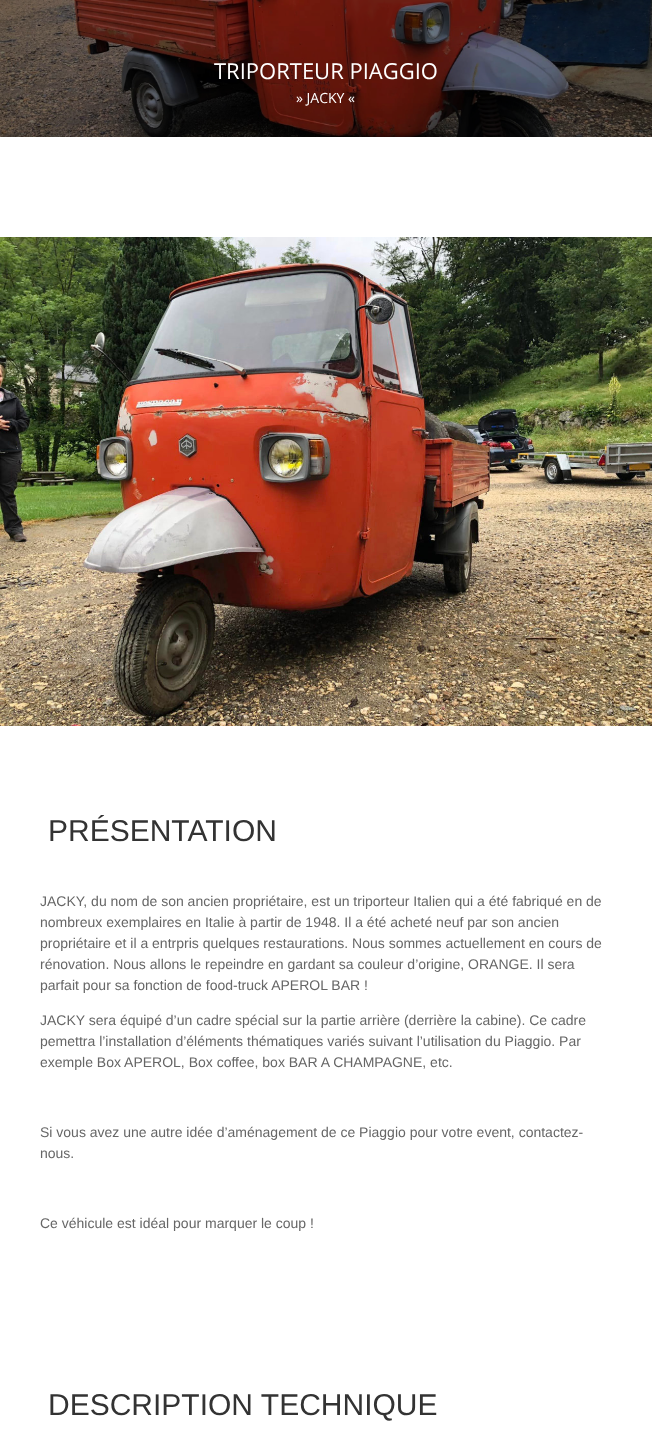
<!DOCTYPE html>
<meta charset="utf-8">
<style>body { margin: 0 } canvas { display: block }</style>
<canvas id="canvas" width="652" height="1447"></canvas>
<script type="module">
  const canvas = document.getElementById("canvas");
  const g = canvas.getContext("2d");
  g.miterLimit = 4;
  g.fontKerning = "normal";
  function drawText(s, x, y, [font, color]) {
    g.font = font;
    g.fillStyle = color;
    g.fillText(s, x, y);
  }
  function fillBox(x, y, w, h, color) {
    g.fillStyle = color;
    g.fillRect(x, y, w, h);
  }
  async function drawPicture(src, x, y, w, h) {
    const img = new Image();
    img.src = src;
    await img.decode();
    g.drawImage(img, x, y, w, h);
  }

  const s1 = ["22px Open Sans", "#FFFFFF"];
  const s2 = ["14px Open Sans", "#FFFFFF"];
  const s3 = ["30px Liberation Sans", "#333333"];
  const s4 = ["14px Liberation Sans", "#666666"];

  fillBox(0, 0, 652, 1447, "#FFFFFF");
  await drawPicture("pic1.png", 0, 0, 652, 137);
  drawText("TRIPORTEUR PIAGGIO", 214, 79, s1);
  drawText("» JACKY «", 296, 103, s2);
  await drawPicture("pic2.png", 0, 237, 652, 489);
  drawText("PRÉSENTATION", 48, 841, s3);
  drawText("JACKY, du nom de son ancien propriétaire, est un triporteur Italien qui a été fabriqué en de", 40, 906, s4);
  drawText("nombreux exemplaires en Italie à partir de 1948. Il a été acheté neuf par son ancien", 40, 927, s4);
  drawText("propriétaire et il a entrpris quelques restaurations. Nous sommes actuellement en cours de", 40, 948, s4);
  drawText("rénovation. Nous allons le repeindre en gardant sa couleur d’origine, ORANGE. Il sera", 40, 969, s4);
  drawText("parfait pour sa fonction de food-truck APEROL BAR !", 40, 990, s4);
  drawText("JACKY sera équipé d’un cadre spécial sur la partie arrière (derrière la cabine). Ce cadre", 40, 1025, s4);
  drawText("pemettra l’installation d’éléments thématiques variés suivant l’utilisation du Piaggio. Par", 40, 1046, s4);
  drawText("exemple Box APEROL, Box coffee, box BAR A CHAMPAGNE, etc.", 40, 1067, s4);
  drawText("Si vous avez une autre idée d’aménagement de ce Piaggio pour votre event, contactez-", 40, 1137, s4);
  drawText("nous.", 40, 1158, s4);
  drawText("Ce véhicule est idéal pour marquer le coup !", 40, 1228, s4);
  drawText("DESCRIPTION TECHNIQUE", 48, 1415, s3);
</script>
